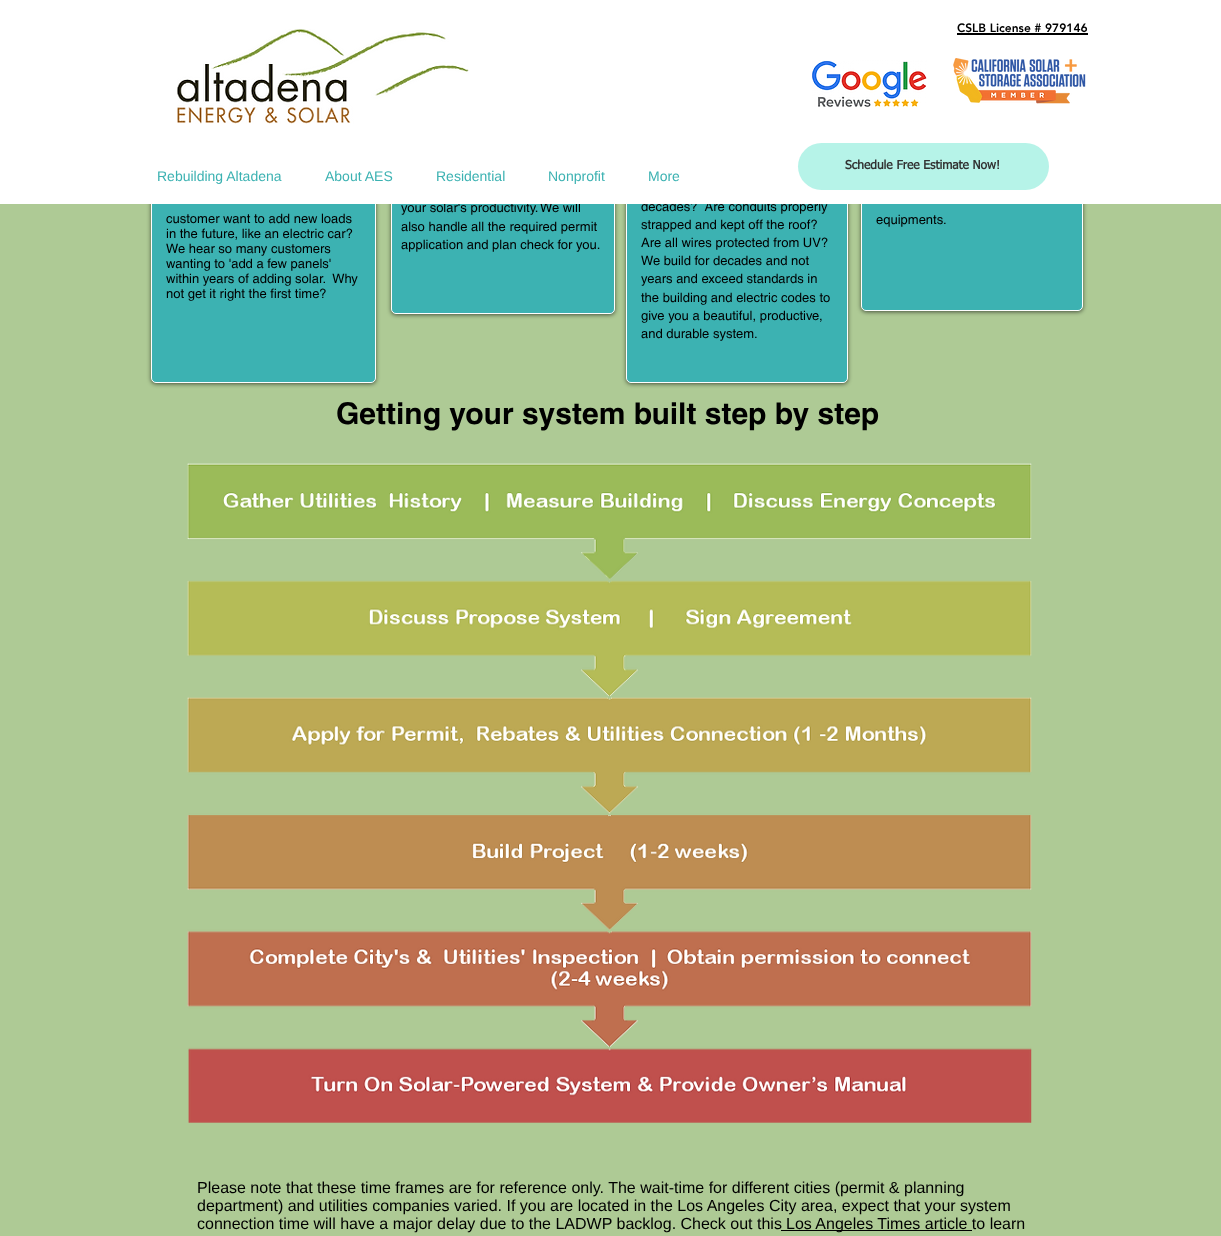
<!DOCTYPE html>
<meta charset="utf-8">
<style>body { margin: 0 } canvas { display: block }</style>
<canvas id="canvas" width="1221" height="1236"></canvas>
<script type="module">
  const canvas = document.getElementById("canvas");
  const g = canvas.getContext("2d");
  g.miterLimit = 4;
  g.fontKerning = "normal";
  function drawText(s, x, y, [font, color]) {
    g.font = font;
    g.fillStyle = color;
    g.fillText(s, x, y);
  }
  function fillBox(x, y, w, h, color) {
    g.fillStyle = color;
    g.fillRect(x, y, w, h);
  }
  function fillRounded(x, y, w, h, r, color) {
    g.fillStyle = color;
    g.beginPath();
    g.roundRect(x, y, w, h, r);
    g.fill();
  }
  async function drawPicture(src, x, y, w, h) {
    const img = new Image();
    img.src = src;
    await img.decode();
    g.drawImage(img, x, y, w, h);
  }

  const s1 = ["13px helvetica", "#000000"];
  const s2 = ["900 12px 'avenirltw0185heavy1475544'", "#000000"];
  const s3 = ["bold 12px tahoma", "#323232"];
  const s4 = ["14px Liberation Sans", "#3CB2B2"];
  const s5 = ["bold 30px helvetica", "#000000"];
  const s6 = ["16px Liberation Sans", "#000000"];

  fillBox(0, 0, 1221, 1236, "#AECA95");
  g.fillStyle = "rgba(0, 0, 0, 0.6)";
  g.filter = "blur(2px)";
  g.beginPath();
  g.roundRect(151, -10, 225, 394, 5);
  g.fill();
  g.filter = "none";
  g.fillStyle = "#3CB2B2";
  g.beginPath();
  g.roundRect(151.5, -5.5, 224, 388, 4.5);
  g.fill();
  g.strokeStyle = "#FFFFFF";
  g.stroke();
  g.fillStyle = "rgba(0, 0, 0, 0.6)";
  g.filter = "blur(2px)";
  g.beginPath();
  g.roundRect(391, -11, 224, 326, 5);
  g.fill();
  g.filter = "none";
  g.fillStyle = "#3CB2B2";
  g.beginPath();
  g.roundRect(391.5, -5.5, 223, 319, 4.5);
  g.fill();
  g.stroke();
  drawText("your solar's productivity.", 401, 212, s1);
  drawText("We will", 540, 212, s1);
  g.fillStyle = "rgba(0, 0, 0, 0.6)";
  g.filter = "blur(2px)";
  g.beginPath();
  g.roundRect(626, -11, 222, 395, 5);
  g.fill();
  g.filter = "none";
  g.fillStyle = "#3CB2B2";
  g.beginPath();
  g.roundRect(626.5, -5.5, 221, 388, 4.5);
  g.fill();
  g.stroke();
  drawText("decades?  Are conduits properly", 641, 211, s1);
  g.fillStyle = "rgba(0, 0, 0, 0.6)";
  g.filter = "blur(2px)";
  g.beginPath();
  g.roundRect(861, -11, 222, 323, 5);
  g.fill();
  g.filter = "none";
  g.fillStyle = "#3CB2B2";
  g.beginPath();
  g.roundRect(861.5, -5.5, 221, 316, 4.5);
  g.fill();
  g.stroke();
  fillBox(0, 0, 1221, 204, "#FFFFFF");
  drawText("CSLB License # 979146", 957, 32, s2);
  fillBox(957, 33, 131, 2, "#000000");
  await drawPicture("pic1.png", 177, 29, 292, 95);
  await drawPicture("pic2.png", 812, 60, 115, 47);
  await drawPicture("pic3.png", 953, 58, 133, 46);
  fillRounded(798, 143, 251, 47, 23.5, "#B6F3E8");
  drawText("Schedule Free Estimate Now!", 845, 169, s3);
  drawText("Rebuilding Altadena", 157, 181, s4);
  drawText("About AES", 325, 181, s4);
  drawText("Residential", 436, 181, s4);
  drawText("Nonprofit", 548, 181, s4);
  drawText("More", 648, 181, s4);
  drawText("customer want to add new loads", 166, 223, s1);
  drawText("in the future, like an electric car?", 166, 238, s1);
  drawText("We hear so many customers", 166, 253, s1);
  drawText("wanting to 'add a few panels'", 166, 268, s1);
  drawText("within years of adding solar.  Why", 166, 283, s1);
  drawText("not get it right the first time?", 166, 298, s1);
  drawText("also handle all the required permit", 401, 231, s1);
  drawText("application and plan check for you.", 401, 249, s1);
  drawText("strapped and kept off the roof?", 641, 229, s1);
  drawText("Are all wires protected from UV?", 641, 247, s1);
  drawText("We build for decades and not", 641, 265, s1);
  drawText("years and exceed standards in", 641, 283, s1);
  drawText("the building and electric codes to", 641, 302, s1);
  drawText("give you a beautiful, productive,", 641, 320, s1);
  drawText("and durable system.", 641, 338, s1);
  drawText("equipments.", 876, 224, s1);
  drawText("Getting your system built step by step", 336, 424, s5);
  await drawPicture("pic4.png", 187, 463, 845, 660);
  drawText("Please note that these time frames are for reference only. The wait-time for different cities (permit & planning", 197, 1193, s6);
  drawText("department) and utilities companies varied. If you are located in the Los Angeles City area, expect that your system", 197, 1211, s6);
  drawText("connection time will have a major delay due to the LADWP backlog. Check out this", 197, 1229, s6);
  fillBox(781, 1230, 191, 1, "#000000");
  drawText("Los Angeles Times article to learn", 786, 1229, s6);
</script>
